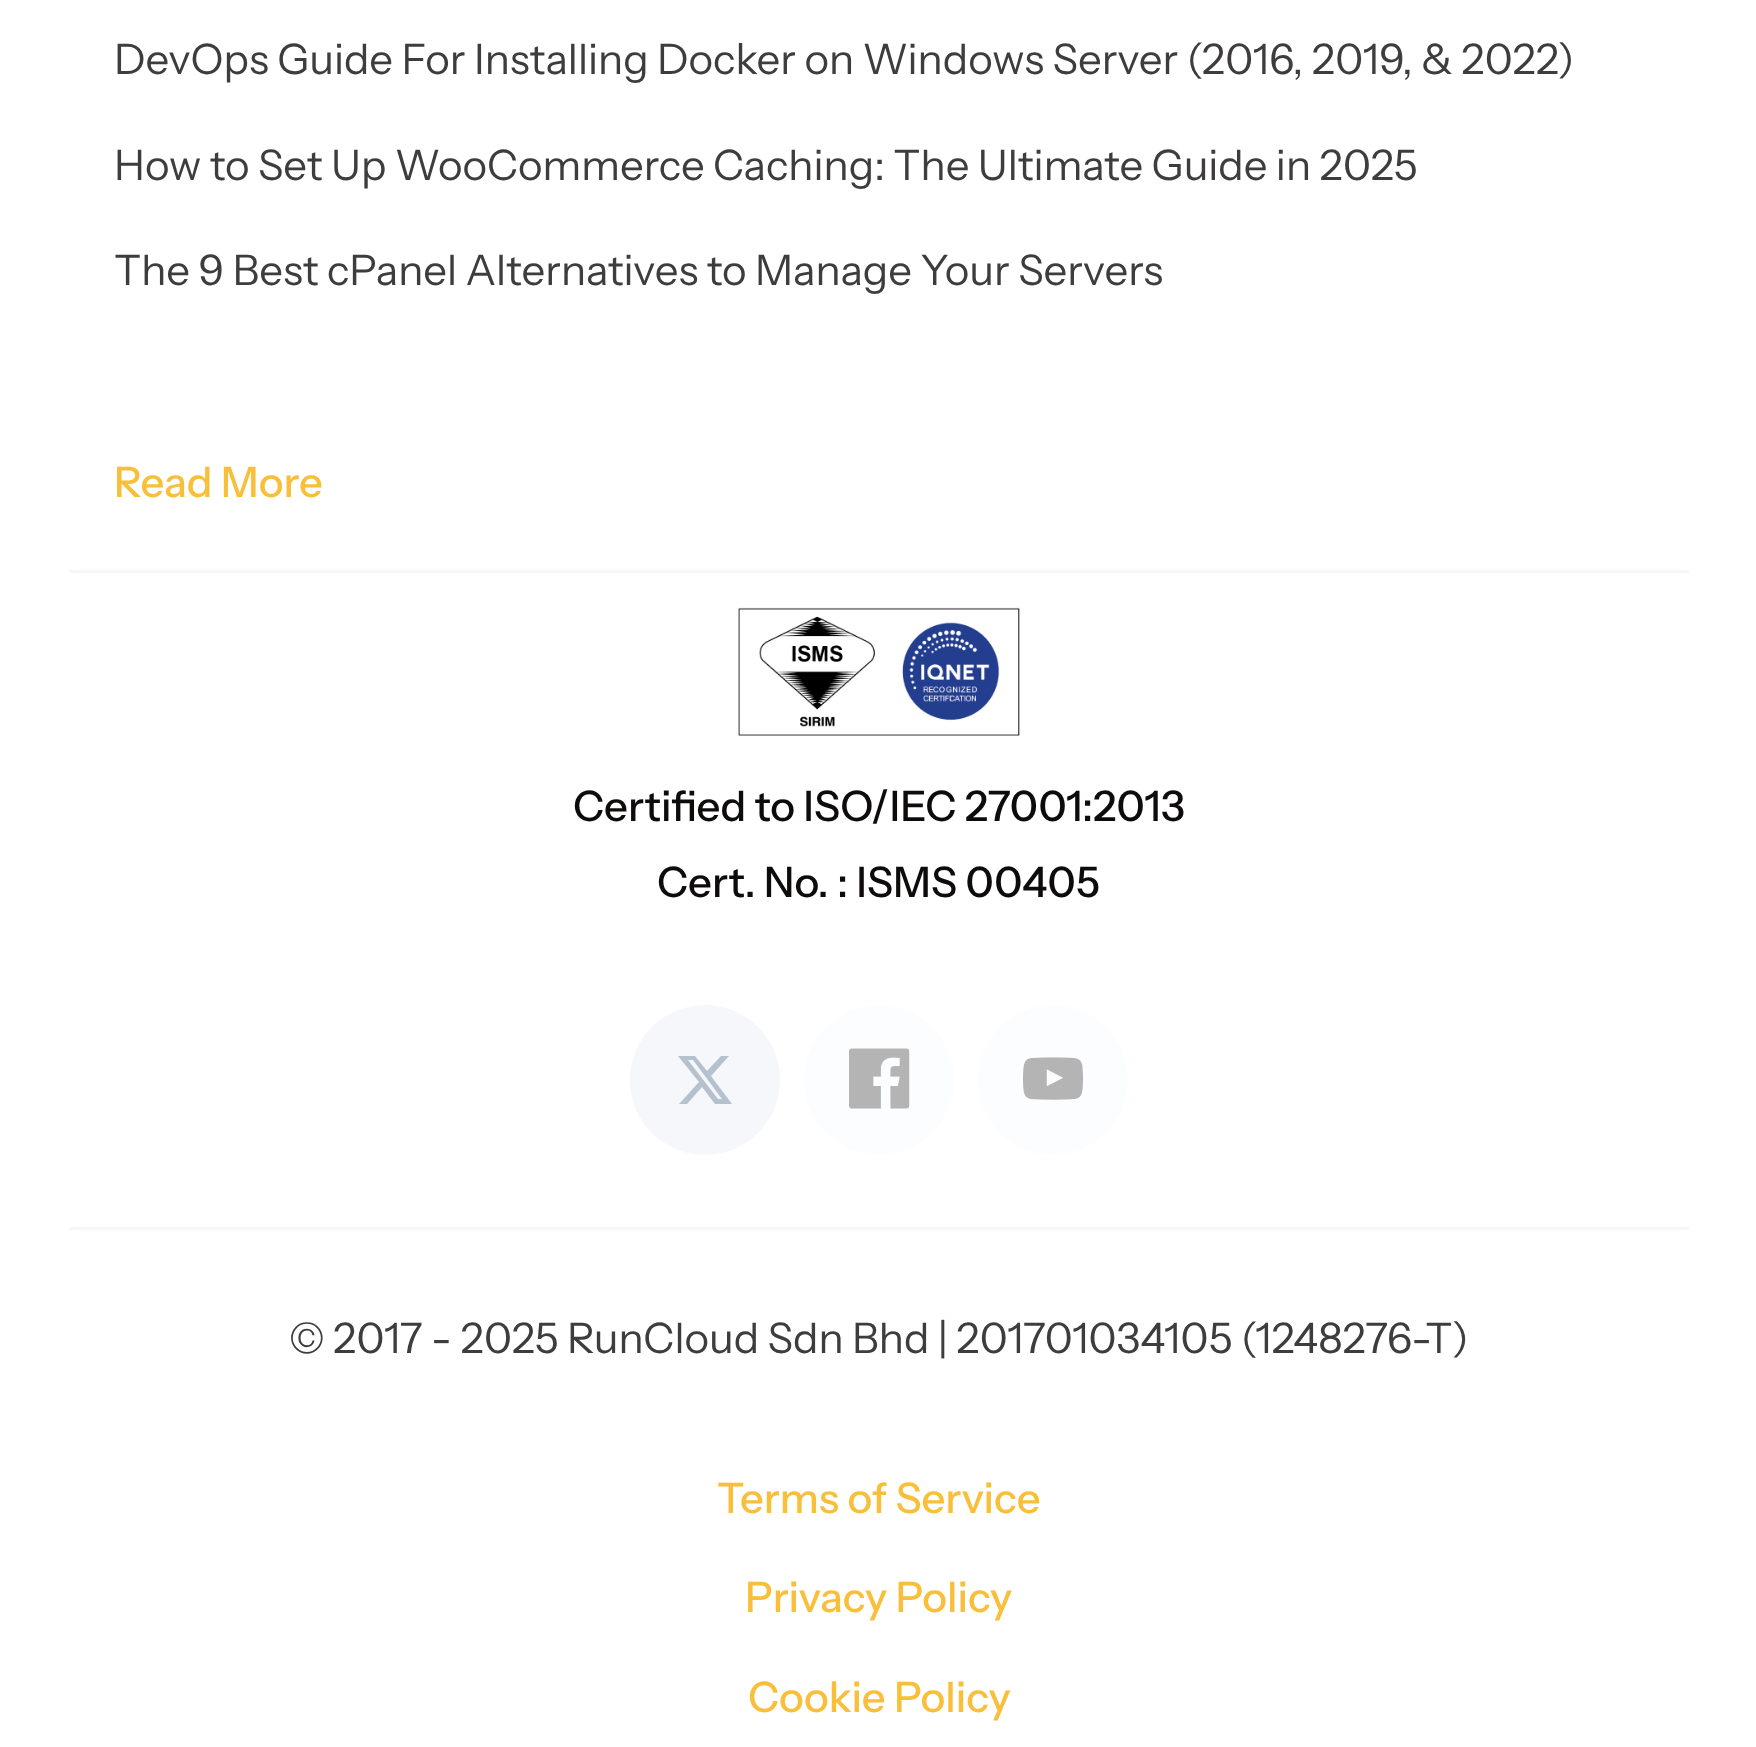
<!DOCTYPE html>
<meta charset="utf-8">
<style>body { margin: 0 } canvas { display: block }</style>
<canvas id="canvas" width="1756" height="1747"></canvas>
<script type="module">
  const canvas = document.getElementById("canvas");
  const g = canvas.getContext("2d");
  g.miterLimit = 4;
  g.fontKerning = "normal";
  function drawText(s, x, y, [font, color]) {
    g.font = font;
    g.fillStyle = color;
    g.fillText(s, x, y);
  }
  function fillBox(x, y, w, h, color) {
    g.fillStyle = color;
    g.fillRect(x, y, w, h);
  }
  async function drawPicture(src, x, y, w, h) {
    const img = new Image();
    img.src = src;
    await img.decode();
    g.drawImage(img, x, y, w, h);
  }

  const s1 = ["42px Instrument Sans", "#3E3C3C"];
  const s2 = ["500 42px Instrument Sans", "#F9BF3B"];
  const s3 = ["500 42px Instrument Sans", "#0E0B0B"];

  fillBox(0, 0, 1756, 1747, "#FFFFFF");
  drawText("DevOps Guide For Installing Docker on Windows Server (2016, 2019, & 2022)", 114, 74, s1);
  drawText("How to Set Up WooCommerce Caching: The Ultimate Guide in 2025", 114, 180, s1);
  drawText("The 9 Best cPanel Alternatives to Manage Your Servers", 114, 285, s1);
  drawText("Read More", 114, 497, s2);
  fillBox(69, 570, 1620, 3, "#F5F7FA");
  await drawPicture("pic1.png", 738, 607, 282, 129);
  drawText("Certified to ISO/IEC 27001:2013", 573, 821, s3);
  drawText("Cert. No. : ISMS 00405", 657, 897, s3);
  g.fillStyle = "#F5F7FA";
  g.beginPath();
  g.arc(705, 1080, 75, 0, Math.PI * 2);
  g.fill();
  g.fillStyle = "#B5C2CE";
  g.beginPath();
  g.moveTo(721, 1056);
  g.lineTo(729, 1056);
  g.lineTo(711, 1076);
  g.lineTo(732, 1104);
  g.lineTo(715, 1104);
  g.lineTo(702, 1087);
  g.lineTo(687, 1104);
  g.lineTo(679, 1104);
  g.lineTo(699, 1082);
  g.lineTo(678, 1056);
  g.lineTo(695, 1056);
  g.lineTo(707, 1071);
  g.closePath();
  g.moveTo(718, 1099);
  g.lineTo(722, 1099);
  g.lineTo(693, 1060);
  g.lineTo(688, 1060);
  g.closePath();
  g.fill();
  g.fillStyle = "#FCFDFE";
  g.beginPath();
  g.arc(879, 1080, 75, 0, Math.PI * 2);
  g.fill();
  await drawPicture("pic2.png", 849, 1048, 61, 61);
  g.beginPath();
  g.arc(1053, 1080, 75, 0, Math.PI * 2);
  g.fill();
  await drawPicture("pic3.png", 1023, 1057, 60, 43);
  fillBox(69, 1227, 1620, 3, "#F5F7FA");
  drawText("© 2017 - 2025 RunCloud Sdn Bhd | 201701034105 (1248276-T)", 289, 1353, s1);
  drawText("Terms of Service", 717, 1513, s2);
  drawText("Privacy Policy", 745, 1612, s2);
  drawText("Cookie Policy", 748, 1712, s2);
</script>
